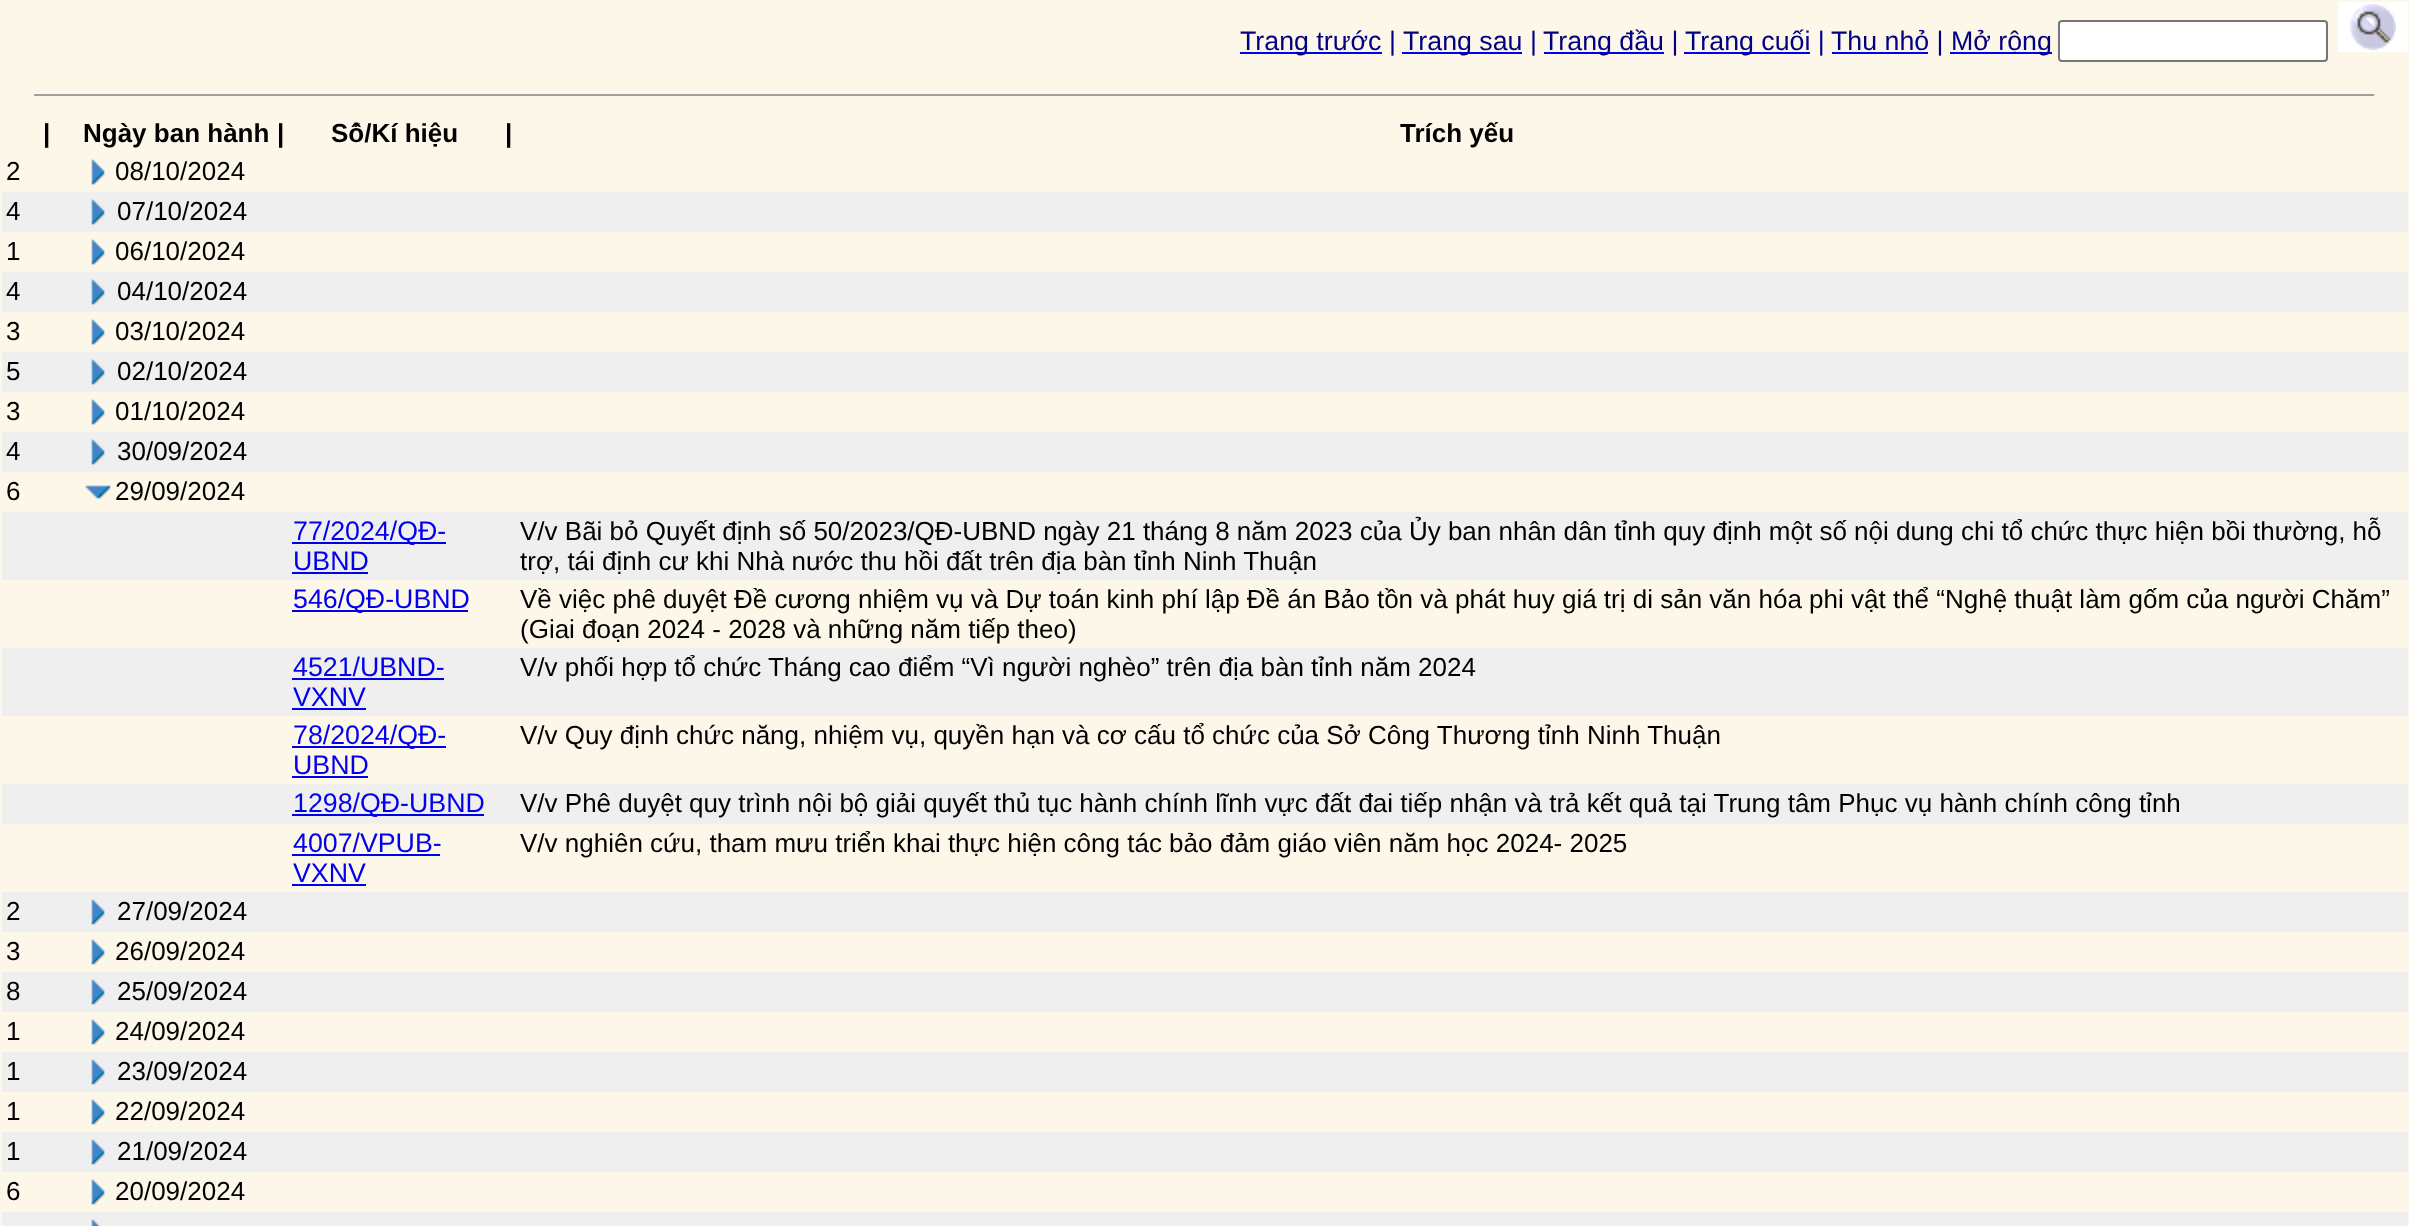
<!DOCTYPE html>
<meta charset="utf-8">
<style>body { margin: 0 } canvas { display: block }</style>
<canvas id="canvas" width="2409" height="1226"></canvas>
<script type="module">
  const canvas = document.getElementById("canvas");
  const g = canvas.getContext("2d");
  g.miterLimit = 4;
  g.fontKerning = "normal";
  function drawText(s, x, y, [font, color]) {
    g.font = font;
    g.fillStyle = color;
    g.fillText(s, x, y);
  }
  function fillBox(x, y, w, h, color) {
    g.fillStyle = color;
    g.fillRect(x, y, w, h);
  }
  async function drawPicture(src, x, y, w, h) {
    const img = new Image();
    img.src = src;
    await img.decode();
    g.drawImage(img, x, y, w, h);
  }

  const s1 = ["26.75px Liberation Sans", "#000080"];
  const s2 = ["bold 26px Liberation Sans", "#000000"];
  const s3 = ["26px Liberation Sans", "#000000"];
  const s4 = ["26.75px Liberation Sans", "#0000EE"];

  fillBox(0, 0, 2409, 1226, "#FDF7EA");
  fillBox(1240, 52, 142, 2, "#0000EE");
  drawText("Trang trước |", 1240, 50, s1);
  fillBox(1402, 52, 120, 2, "#0000EE");
  drawText("Trang sau |", 1403, 50, s1);
  fillBox(1544, 52, 120, 2, "#0000EE");
  drawText("Trang đầu |", 1543, 50, s1);
  fillBox(1684, 52, 126, 2, "#0000EE");
  drawText("Trang cuối |", 1685, 50, s1);
  fillBox(1832, 52, 96, 2, "#0000EE");
  drawText("Thu nhỏ |", 1831, 50, s1);
  fillBox(1950, 52, 102, 2, "#0000EE");
  drawText("Mở rộng", 1951, 50, s1);
  g.fillStyle = "#FFFFFF";
  g.beginPath();
  g.roundRect(2059, 21, 268, 40, 3);
  g.fill();
  g.strokeStyle = "#767676";
  g.lineWidth = 2;
  g.stroke();
  fillBox(2338, 2, 70, 50, "#FFFFFF");
  await drawPicture("pic1.png", 2350, 4, 46, 46);
  fillBox(34, 94, 2342, 2, "#9F9F9F");
  fillBox(2374, 94, 2, 2, "#EEEEEE");
  drawText("|", 43, 142, s2);
  drawText("Ngày ban hành", 83, 142, s2);
  drawText("|", 277, 142, s2);
  drawText("Số/Kí hiệu", 331, 142, s2);
  drawText("|", 505, 142, s2);
  drawText("Trích yếu", 1400, 142, s2);
  drawText("2", 6, 180, s3);
  await drawPicture("pic2.png", 91, 159, 14, 26);
  drawText("08/10/2024", 115, 180, s3);
  fillBox(2, 192, 2406, 40, "#EFEFEF");
  drawText("4", 6, 220, s3);
  await drawPicture("pic3.png", 91, 199, 14, 26);
  drawText("07/10/2024", 117, 220, s3);
  drawText("1", 6, 260, s3);
  await drawPicture("pic2.png", 91, 239, 14, 26);
  drawText("06/10/2024", 115, 260, s3);
  fillBox(2, 272, 2406, 40, "#EFEFEF");
  drawText("4", 6, 300, s3);
  await drawPicture("pic3.png", 91, 279, 14, 26);
  drawText("04/10/2024", 117, 300, s3);
  drawText("3", 6, 340, s3);
  await drawPicture("pic2.png", 91, 319, 14, 26);
  drawText("03/10/2024", 115, 340, s3);
  fillBox(2, 352, 2406, 40, "#EFEFEF");
  drawText("5", 6, 380, s3);
  await drawPicture("pic3.png", 91, 359, 14, 26);
  drawText("02/10/2024", 117, 380, s3);
  drawText("3", 6, 420, s3);
  await drawPicture("pic2.png", 91, 399, 14, 26);
  drawText("01/10/2024", 115, 420, s3);
  fillBox(2, 432, 2406, 40, "#EFEFEF");
  drawText("4", 6, 460, s3);
  await drawPicture("pic3.png", 91, 439, 14, 26);
  drawText("30/09/2024", 117, 460, s3);
  drawText("6", 6, 500, s3);
  await drawPicture("pic4.png", 85, 485, 26, 14);
  drawText("29/09/2024", 115, 500, s3);
  fillBox(2, 512, 2406, 68, "#EFEFEF");
  fillBox(292, 542, 154, 2, "#0000EE");
  drawText("77/2024/QĐ-", 293, 540, s4);
  drawText("UBND", 293, 570, s4);
  fillBox(292, 572, 76, 2, "#0000EE");
  drawText("V/v Bãi bỏ Quyết định số 50/2023/QĐ-UBND ngày 21 tháng 8 năm 2023 của Ủy ban nhân dân tỉnh quy định một số nội dung chi tổ chức thực hiện bồi thường, hỗ", 520, 540, s3);
  drawText("trợ, tái định cư khi Nhà nước thu hồi đất trên địa bàn tỉnh Ninh Thuận", 520, 570, s3);
  fillBox(292, 610, 176, 2, "#0000EE");
  drawText("546/QĐ-UBND", 293, 608, s4);
  drawText("Về việc phê duyệt Đề cương nhiệm vụ và Dự toán kinh phí lập Đề án Bảo tồn và phát huy giá trị di sản văn hóa phi vật thể “Nghệ thuật làm gốm của người Chăm”", 520, 608, s3);
  drawText("(Giai đoạn 2024 - 2028 và những năm tiếp theo)", 520, 638, s3);
  fillBox(2, 648, 2406, 68, "#EFEFEF");
  drawText("4521/UBND-", 293, 676, s4);
  fillBox(292, 678, 152, 2, "#0000EE");
  drawText("VXNV", 293, 706, s4);
  fillBox(292, 708, 74, 2, "#0000EE");
  drawText("V/v phối hợp tổ chức Tháng cao điểm “Vì người nghèo” trên địa bàn tỉnh năm 2024", 520, 676, s3);
  fillBox(292, 746, 154, 2, "#0000EE");
  drawText("78/2024/QĐ-", 293, 744, s4);
  drawText("UBND", 293, 774, s4);
  fillBox(292, 776, 76, 2, "#0000EE");
  drawText("V/v Quy định chức năng, nhiệm vụ, quyền hạn và cơ cấu tổ chức của Sở Công Thương tỉnh Ninh Thuận", 520, 744, s3);
  fillBox(2, 784, 2406, 40, "#EFEFEF");
  fillBox(292, 814, 192, 2, "#0000EE");
  drawText("1298/QĐ-UBND", 293, 812, s4);
  drawText("V/v Phê duyệt quy trình nội bộ giải quyết thủ tục hành chính lĩnh vực đất đai tiếp nhận và trả kết quả tại Trung tâm Phục vụ hành chính công tỉnh", 520, 812, s3);
  drawText("4007/VPUB-", 293, 852, s4);
  fillBox(292, 854, 148, 2, "#0000EE");
  drawText("VXNV", 293, 882, s4);
  fillBox(292, 884, 74, 2, "#0000EE");
  drawText("V/v nghiên cứu, tham mưu triển khai thực hiện công tác bảo đảm giáo viên năm học 2024- 2025", 520, 852, s3);
  fillBox(2, 892, 2406, 40, "#EFEFEF");
  drawText("2", 6, 920, s3);
  await drawPicture("pic3.png", 91, 899, 14, 26);
  drawText("27/09/2024", 117, 920, s3);
  drawText("3", 6, 960, s3);
  await drawPicture("pic2.png", 91, 939, 14, 26);
  drawText("26/09/2024", 115, 960, s3);
  fillBox(2, 972, 2406, 40, "#EFEFEF");
  drawText("8", 6, 1000, s3);
  await drawPicture("pic3.png", 91, 979, 14, 26);
  drawText("25/09/2024", 117, 1000, s3);
  drawText("1", 6, 1040, s3);
  await drawPicture("pic2.png", 91, 1019, 14, 26);
  drawText("24/09/2024", 115, 1040, s3);
  fillBox(2, 1052, 2406, 40, "#EFEFEF");
  drawText("1", 6, 1080, s3);
  await drawPicture("pic3.png", 91, 1059, 14, 26);
  drawText("23/09/2024", 117, 1080, s3);
  drawText("1", 6, 1120, s3);
  await drawPicture("pic2.png", 91, 1099, 14, 26);
  drawText("22/09/2024", 115, 1120, s3);
  fillBox(2, 1132, 2406, 40, "#EFEFEF");
  drawText("1", 6, 1160, s3);
  await drawPicture("pic3.png", 91, 1139, 14, 26);
  drawText("21/09/2024", 117, 1160, s3);
  drawText("6", 6, 1200, s3);
  await drawPicture("pic2.png", 91, 1179, 14, 26);
  drawText("20/09/2024", 115, 1200, s3);
  fillBox(2, 1212, 2406, 14, "#EFEFEF");
  await drawPicture("pic5.png", 91, 1219, 10, 7);
</script>
